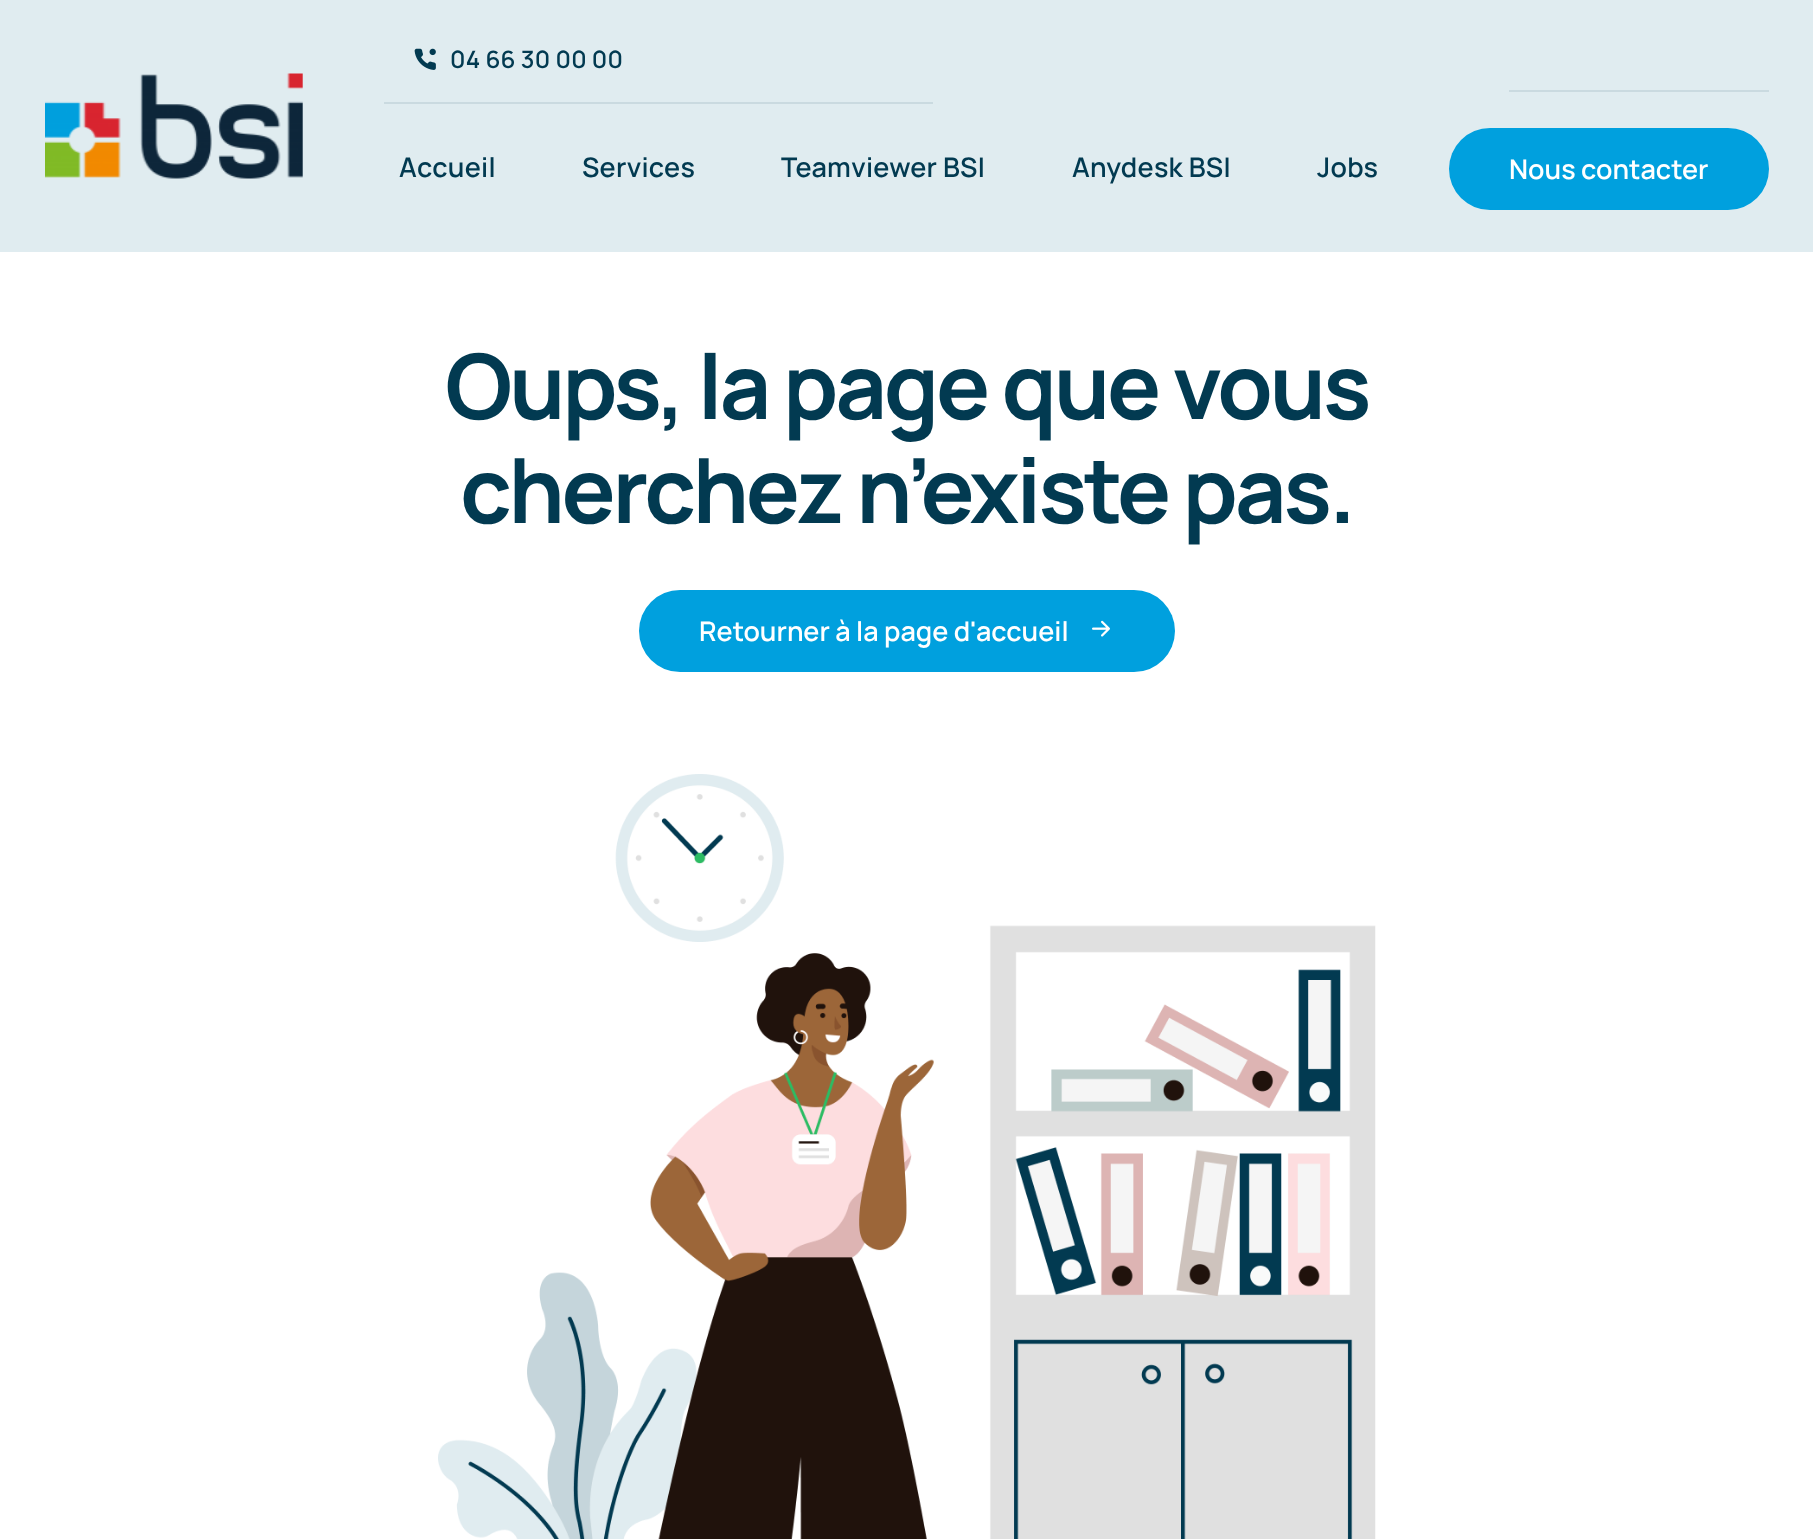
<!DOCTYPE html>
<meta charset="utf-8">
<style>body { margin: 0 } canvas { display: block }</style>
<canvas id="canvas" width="1813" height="1539"></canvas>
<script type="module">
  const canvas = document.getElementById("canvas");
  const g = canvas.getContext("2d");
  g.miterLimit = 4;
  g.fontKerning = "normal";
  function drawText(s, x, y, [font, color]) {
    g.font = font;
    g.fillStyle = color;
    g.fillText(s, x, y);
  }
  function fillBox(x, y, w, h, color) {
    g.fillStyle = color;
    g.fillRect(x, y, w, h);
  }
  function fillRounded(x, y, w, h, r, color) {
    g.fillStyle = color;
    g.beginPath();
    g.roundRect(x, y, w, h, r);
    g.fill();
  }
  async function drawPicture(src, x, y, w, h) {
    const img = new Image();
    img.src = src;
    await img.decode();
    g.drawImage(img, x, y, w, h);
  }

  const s1 = ["600 24px Manrope", "#023A51"];
  const s2 = ["600 27px Manrope", "#023A51"];
  const s3 = ["600 27px Manrope", "#FFFFFF"];
  const s4 = ["bold 90px Manrope", "#023A51"];

  fillBox(0, 0, 1813, 1539, "#FFFFFF");
  fillBox(0, 0, 1813, 252, "#E0ECF0");
  await drawPicture("pic1.png", 45, 73, 258, 106);
  fillBox(384, 102, 549, 2, "#CADAE0");
  await drawPicture("pic2.png", 414, 48, 22, 22);
  g.letterSpacing = "0.25px";
  drawText("04 66 30 00 00", 450, 68, s1);
  fillBox(1509, 90, 260, 2, "#CADAE0");
  drawText("Accueil", 399, 177, s2);
  drawText("Services", 582, 177, s2);
  drawText("Teamviewer BSI", 781, 177, s2);
  drawText("Anydesk BSI", 1072, 177, s2);
  drawText("Jobs", 1317, 177, s2);
  fillRounded(1449, 128, 320, 82, 41, "#00A0DE");
  g.letterSpacing = "0px";
  drawText("Nous contacter", 1509, 179, s3);
  g.letterSpacing = "-3.25px";
  drawText("Oups, la page que vous", 445, 419, s4);
  drawText("cherchez n’existe pas.", 460, 523, s4);
  fillRounded(639, 590, 536, 82, 41, "#00A0DE");
  g.letterSpacing = "0px";
  drawText("Retourner à la page d'accueil", 699, 641, s3);
  await drawPicture("pic3.png", 1092, 620, 18, 17);
  await drawPicture("pic4.png", 438, 774, 938, 765);
</script>
